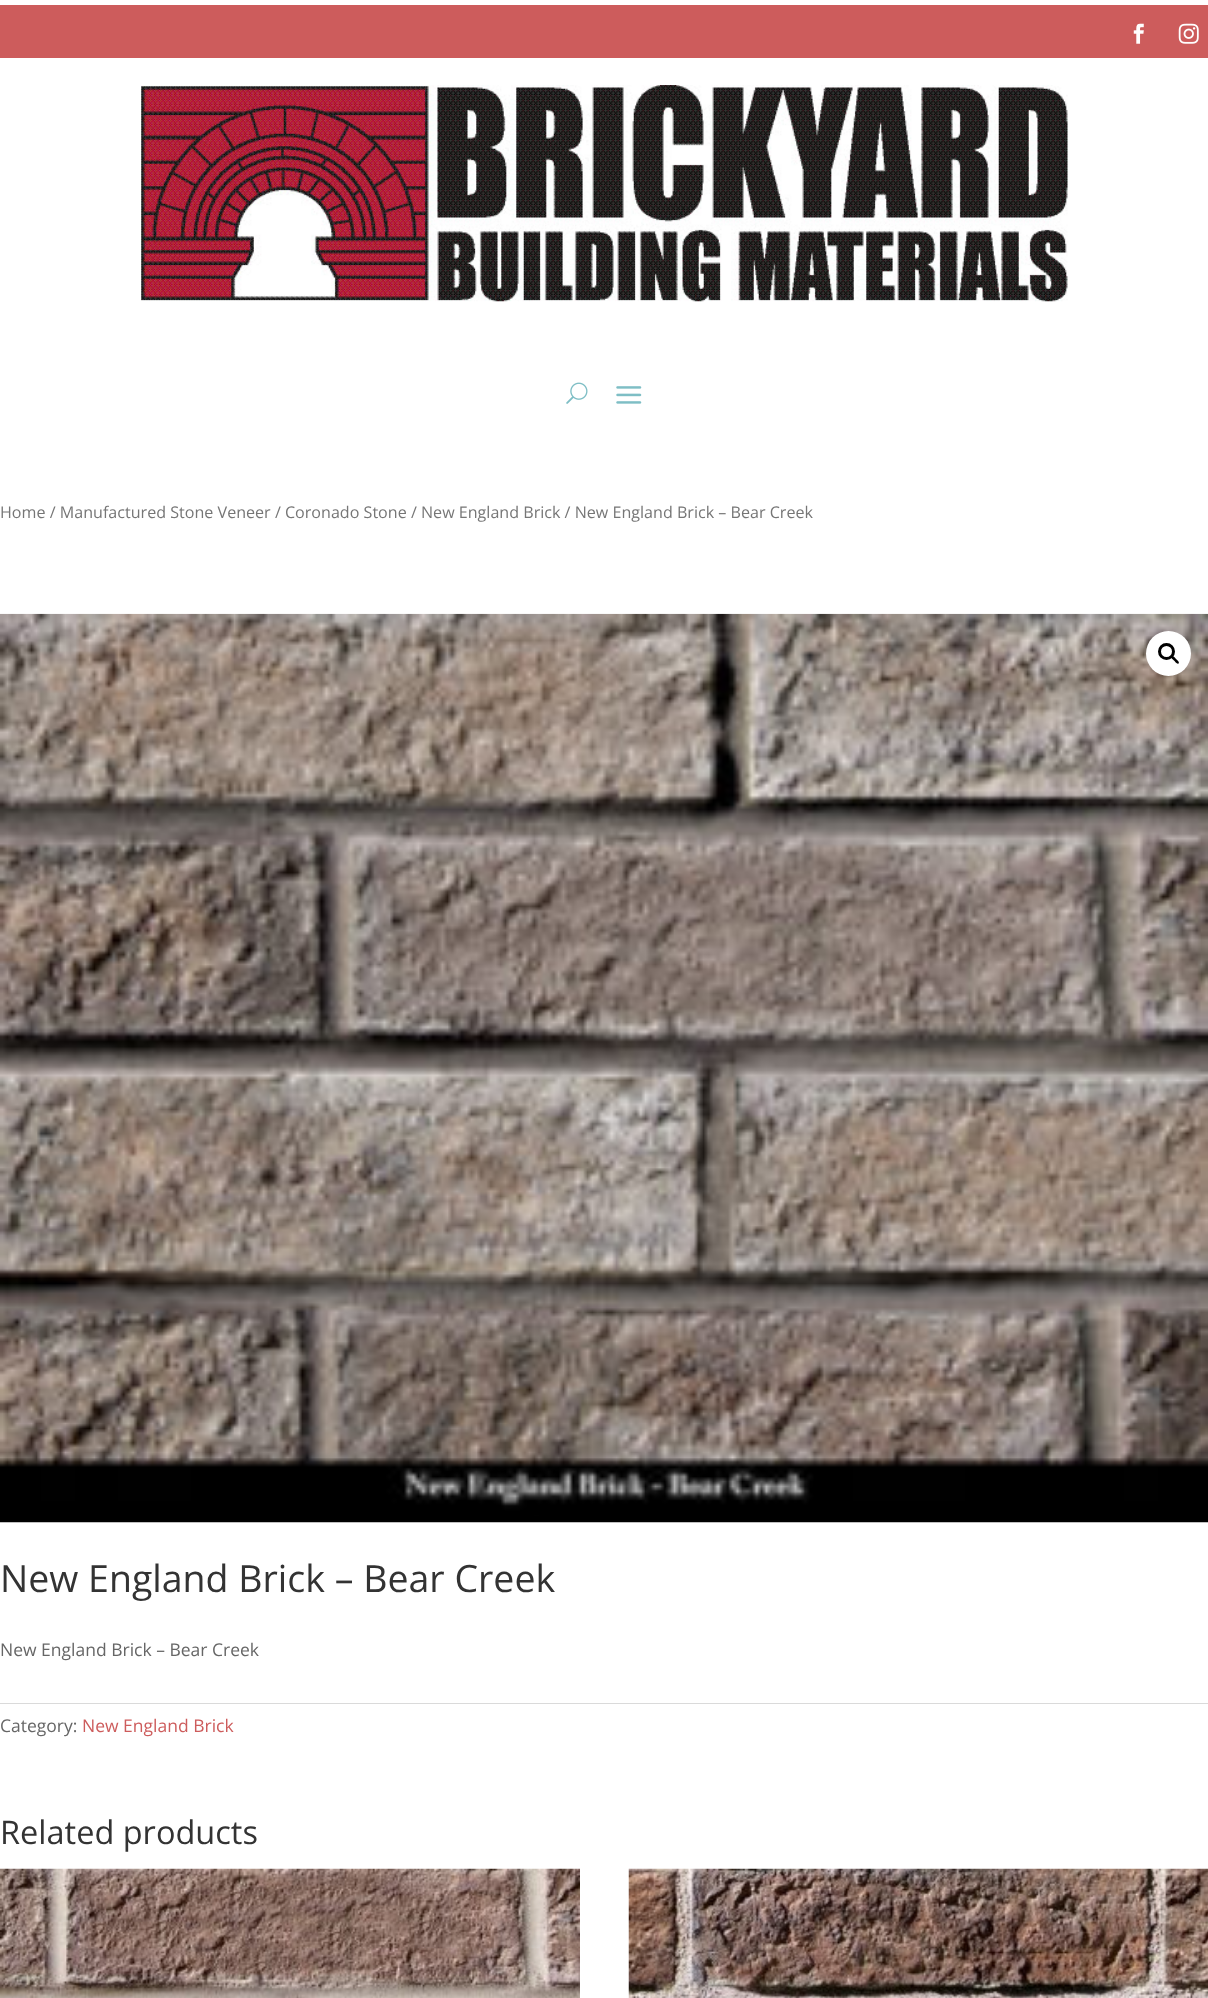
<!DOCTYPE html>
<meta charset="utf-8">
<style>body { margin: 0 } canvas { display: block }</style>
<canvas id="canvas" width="1208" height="1998"></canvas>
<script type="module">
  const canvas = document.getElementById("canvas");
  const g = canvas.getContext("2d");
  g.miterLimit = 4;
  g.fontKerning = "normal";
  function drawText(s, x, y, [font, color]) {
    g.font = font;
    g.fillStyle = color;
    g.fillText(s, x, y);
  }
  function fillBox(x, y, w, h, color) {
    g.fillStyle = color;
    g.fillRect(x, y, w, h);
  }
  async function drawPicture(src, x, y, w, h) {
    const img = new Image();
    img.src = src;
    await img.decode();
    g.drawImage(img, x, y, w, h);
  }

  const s1 = ["16.1px Open Sans", "#767676"];
  const s2 = ["37.5px Open Sans", "#333333"];
  const s3 = ["17.5px Open Sans", "#666666"];
  const s4 = ["17.5px Open Sans", "#CD5C5C"];
  const s5 = ["32.5px Open Sans", "#333333"];

  fillBox(0, 0, 1208, 1998, "#FFFFFF");
  fillBox(0, 5, 1208, 53, "#CD5C5C");
  await drawPicture("pic1.png", 1133, 23, 11, 21);
  await drawPicture("pic2.png", 1178, 23, 21, 21);
  await drawPicture("pic3.png", 141, 85, 927, 217);
  await drawPicture("pic4.png", 566, 382, 22, 22);
  await drawPicture("pic5.png", 616, 386, 26, 18);
  drawText("Home / Manufactured Stone Veneer / Coronado Stone / New England Brick / New England Brick – Bear Creek", 0, 518, s1);
  await drawPicture("pic6.png", 0, 613, 1208, 910);
  g.fillStyle = "#FFFFFF";
  g.beginPath();
  g.arc(1168.5, 653.5, 22.5, 0, Math.PI * 2);
  g.fill();
  g.beginPath();
  g.arc(1166.5, 651.5, 7, 0, Math.PI * 2);
  g.strokeStyle = "#000000";
  g.lineWidth = 3;
  g.stroke();
  g.fillStyle = "#000000";
  g.beginPath();
  g.moveTo(1171.5, 656);
  g.bezierCurveTo(1173, 655, 1175, 658, 1176, 659);
  g.bezierCurveTo(1176.5, 659.5, 1180, 662, 1178.5, 663.5);
  g.bezierCurveTo(1177, 664.5, 1175, 661.5, 1174, 660.5);
  g.bezierCurveTo(1173.5, 660, 1170, 657.5, 1171.5, 656);
  g.closePath();
  g.fill();
  drawText("New England Brick – Bear Creek", 0, 1592, s2);
  drawText("New England Brick – Bear Creek", 0, 1656, s3);
  fillBox(0, 1703, 1208, 1, "#DADADA");
  drawText("Category:", 0, 1732, s3);
  drawText("New England Brick", 82, 1732, s4);
  drawText("Related products", 0, 1844, s5);
  await drawPicture("pic7.png", 0, 1868, 580, 130);
  await drawPicture("pic8.png", 628, 1868, 580, 130);
</script>
